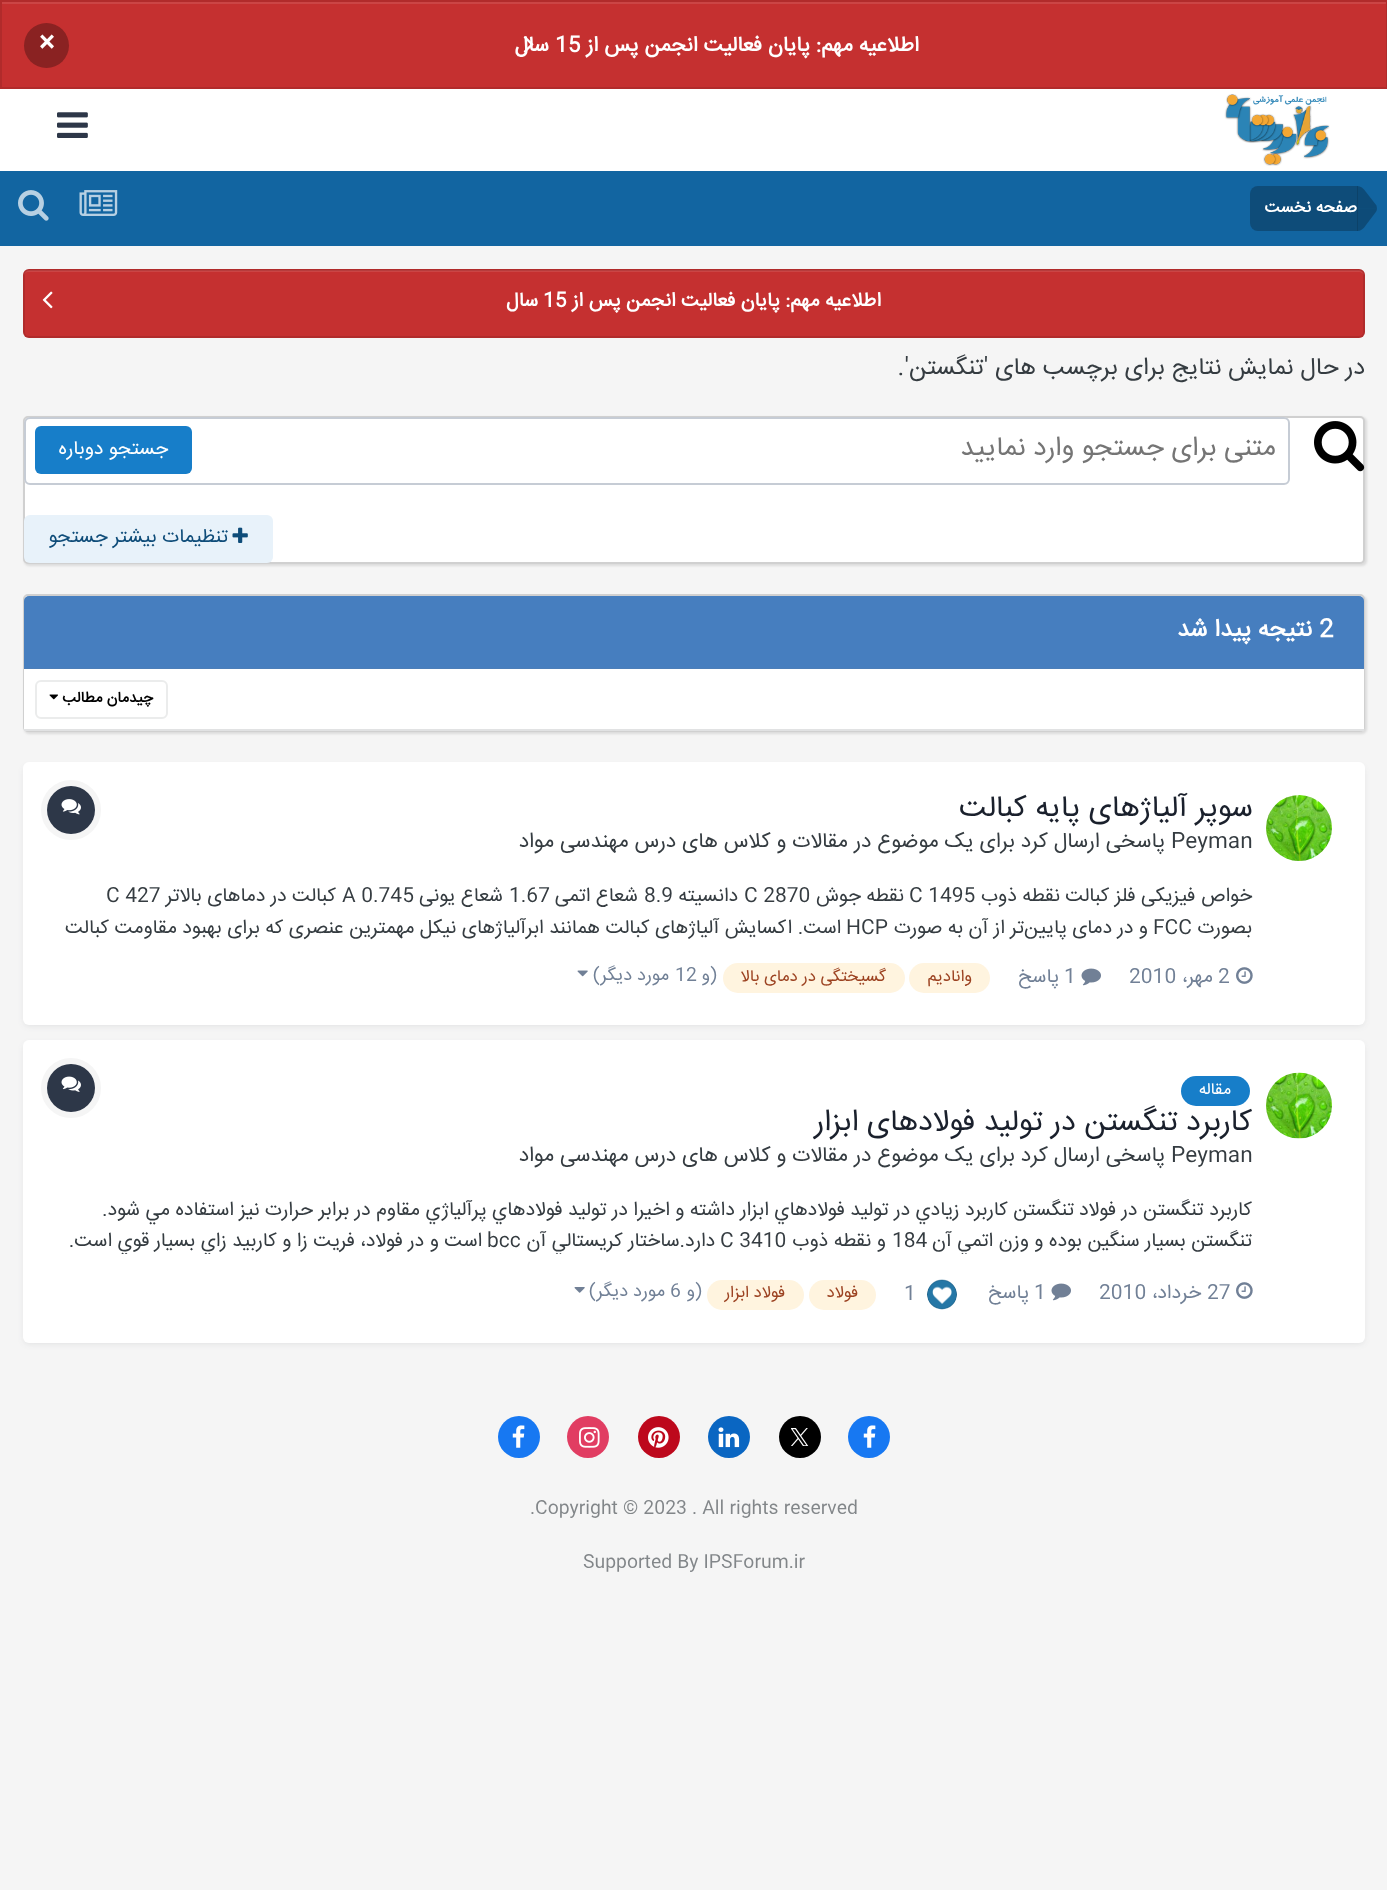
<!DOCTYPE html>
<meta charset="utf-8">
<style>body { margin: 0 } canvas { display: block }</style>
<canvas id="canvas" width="1387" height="1890"></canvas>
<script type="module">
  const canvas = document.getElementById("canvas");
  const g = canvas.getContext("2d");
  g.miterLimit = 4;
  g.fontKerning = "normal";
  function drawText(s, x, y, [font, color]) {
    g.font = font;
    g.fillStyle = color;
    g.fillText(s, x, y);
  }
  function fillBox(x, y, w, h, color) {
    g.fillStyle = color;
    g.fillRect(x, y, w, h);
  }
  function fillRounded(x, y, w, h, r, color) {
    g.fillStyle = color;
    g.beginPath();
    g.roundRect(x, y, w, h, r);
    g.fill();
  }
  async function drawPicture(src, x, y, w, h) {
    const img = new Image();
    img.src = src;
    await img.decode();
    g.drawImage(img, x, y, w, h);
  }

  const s1 = ["bold 21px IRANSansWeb", "#FFFFFF"];
  const s2 = ["bold 27px IRANSansWeb", "#FFFFFF"];
  const s3 = ["bold 16.5px IRANSansWeb", "#FFFFFF"];
  const s4 = ["bold 19.5px IRANSansWeb", "#FFFFFF"];
  const s5 = ["24px IRANSansWeb", "#353C41"];
  const s6 = ["27px IRANSansWeb", "#757575"];
  const s7 = ["19.5px IRANSansWeb", "#FFFFFF"];
  const s8 = ["19.5px IRANSansWeb", "#0E4C79"];
  const s9 = ["bold 24px IRANSansWeb", "#FFFFFF"];
  const s10 = ["bold 15px IRANSansWeb", "#000000"];
  const s11 = ["30px IRANSansWeb", "#1A202C"];
  const s12 = ["21px IRANSansWeb", "#353C41"];
  const s13 = ["19.5px IRANSansWeb", "#353C41"];
  const s14 = ["19.5px IRANSansWeb", "#718096"];
  const s15 = ["16.5px IRANSansWeb", "#9C4221"];
  const s16 = ["18px IRANSansWeb", "#718096"];
  const s17 = ["16.5px IRANSansWeb", "#FFFFFF"];
  const s18 = ["18px IRANSansWeb", "#828689"];

  fillBox(0, 0, 1387, 1890, "#F5F5F5");
  fillBox(2, 4, 1384, 83, "#C53030");
  fillBox(2, 2, 1384, 2, "#CB4545");
  g.strokeStyle = "#B12B2B";
  g.lineWidth = 2;
  g.strokeRect(1, 1, 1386, 87);
  g.direction = "rtl";
  drawText("اطلاعیه مهم: پایان فعالیت انجمن پس از", 919, 51, s1);
  g.direction = "ltr";
  drawText("15", 555, 51, s1);
  g.direction = "rtl";
  drawText("سال", 549, 51, s1);
  await drawPicture("pic1.png", 523, 36, 11, 17);
  g.fillStyle = "#8A2222";
  g.beginPath();
  g.arc(46.5, 45.5, 22.5, 0, Math.PI * 2);
  g.fill();
  g.direction = "ltr";
  drawText("×", 39, 50, s2);
  fillBox(0, 89, 1387, 82, "#FFFFFF");
  await drawPicture("pic2.png", 1224, 94, 106, 72);
  await drawPicture("pic3.png", 57, 112, 31, 26);
  fillBox(0, 171, 1387, 75, "#1265A1");
  g.fillStyle = "#0E4C79";
  g.beginPath();
  g.roundRect(1250, 186, 108, 45, [8, 0, 0, 8]);
  g.fill();
  g.fillStyle = "rgba(0, 0, 0, 0.25)";
  g.beginPath();
  g.moveTo(1357.5, 186);
  g.bezierCurveTo(1360.5, 186, 1363.5, 188, 1366, 192);
  g.lineTo(1376.5, 205.5);
  g.lineTo(1377, 208.5);
  g.lineTo(1357.5, 208.5);
  g.closePath();
  g.fill();
  g.beginPath();
  g.moveTo(1374, 214.5);
  g.lineTo(1366, 225);
  g.bezierCurveTo(1363.5, 229, 1360.5, 231, 1357.5, 231);
  g.lineTo(1357.5, 208.5);
  g.lineTo(1377, 208.5);
  g.bezierCurveTo(1377, 211, 1375.5, 212.5, 1374, 214.5);
  g.closePath();
  g.fill();
  g.direction = "rtl";
  drawText("صفحه نخست", 1357, 212, s3);
  await drawPicture("pic4.png", 79, 190, 39, 26);
  await drawPicture("pic5.png", 18, 190, 31, 31);
  fillRounded(23, 269, 1342, 69, 6, "#C53030");
  g.fillStyle = "#CB4545";
  g.beginPath();
  g.moveTo(28, 272);
  g.lineTo(1359, 272);
  g.bezierCurveTo(1361, 272, 1364, 274, 1364, 276);
  g.bezierCurveTo(1364, 273, 1362, 270, 1359, 270);
  g.lineTo(29, 270);
  g.bezierCurveTo(26, 270, 24, 273, 24, 276);
  g.bezierCurveTo(24, 274, 26, 272, 28, 272);
  g.closePath();
  g.fill();
  g.beginPath();
  g.roundRect(24, 270, 1340, 67, 5);
  g.strokeStyle = "rgba(0, 0, 0, 0.1)";
  g.stroke();
  drawText("اطلاعیه مهم: پایان فعالیت انجمن پس از", 881, 306, s4);
  g.direction = "ltr";
  drawText("15", 543, 306, s4);
  g.direction = "rtl";
  drawText("سال", 538, 306, s4);
  await drawPicture("pic6.png", 42, 291, 11, 18);
  drawText("در حال نمایش نتایج برای برچسب های 'تنگستن'.", 1365, 374, s5);
  g.fillStyle = "rgba(0, 0, 0, 0.1)";
  g.filter = "blur(1px)";
  g.beginPath();
  g.roundRect(24, 417, 1343, 149, 5);
  g.fill();
  g.filter = "none";
  g.fillStyle = "#FFFFFF";
  g.beginPath();
  g.roundRect(24, 417, 1340, 146, 4);
  g.fill();
  g.strokeStyle = "#D0D0D0";
  g.stroke();
  await drawPicture("pic7.png", 1314, 421, 51, 51);
  fillRounded(24, 417, 1266, 68, 6, "#FFFFFF");
  g.beginPath();
  g.roundRect(25, 418, 1264, 66, 5);
  g.strokeStyle = "rgba(113, 128, 150, 0.4)";
  g.stroke();
  drawText("متنی برای جستجو وارد نمایید", 1276, 455, s6);
  fillRounded(35, 426, 157, 48, 6, "#177EC9");
  drawText("جستجو دوباره", 168, 454, s7);
  fillRounded(24, 515, 249, 48, 6, "#E8F2FA");
  await drawPicture("pic8.png", 232, 527, 16, 16);
  drawText("تنظیمات بیشتر جستجو", 228, 542, s8);
  g.fillStyle = "rgba(0, 0, 0, 0.1)";
  g.filter = "blur(1px)";
  g.beginPath();
  g.roundRect(24, 596, 1343, 138, 5);
  g.fill();
  g.filter = "none";
  g.fillStyle = "#FFFFFF";
  g.beginPath();
  g.roundRect(24, 595, 1340, 136, 4);
  g.fill();
  g.strokeStyle = "#D0D0D0";
  g.stroke();
  g.fillStyle = "#467EBF";
  g.beginPath();
  g.roundRect(24, 596, 1340, 73, [5, 5, 0, 0]);
  g.fill();
  fillBox(24, 668, 1340, 1, "rgba(113, 128, 150, 0.15)");
  g.direction = "ltr";
  drawText("2", 1319, 636, s9);
  g.direction = "rtl";
  drawText("نتیجه پیدا شد", 1312, 636, s9);
  fillBox(24, 669, 1340, 60, "#FFFFFF");
  fillBox(24, 729, 1340, 2, "#E1E2E3");
  await drawPicture("pic9.png", 49, 694, 9, 6);
  g.beginPath();
  g.roundRect(36, 681, 131, 37, 5);
  g.strokeStyle = "#EBECEC";
  g.stroke();
  drawText("چیدمان مطالب", 153, 702, s10);
  g.fillStyle = "rgba(45, 55, 72, 0.1)";
  g.filter = "blur(3px)";
  g.beginPath();
  g.roundRect(24, 767, 1340, 259, 5);
  g.fill();
  g.filter = "none";
  fillRounded(23, 762, 1342, 263, 6, "#FFFFFF");
  await drawPicture("pic10.png", 1266, 795, 66, 66);
  drawText("سوپر آلیاژهای پایه کبالت", 1253, 816, s11);
  g.direction = "ltr";
  drawText("Peyman", 1171, 847, s12);
  g.direction = "rtl";
  drawText("پاسخی ارسال کرد برای یک موضوع در", 1165, 847, s12);
  drawText("مقالات و کلاس های درس مهندسی مواد", 848, 847, s12);
  g.beginPath();
  g.arc(71, 810, 27, 0, Math.PI * 2);
  g.strokeStyle = "#F5F5F5";
  g.lineWidth = 6;
  g.stroke();
  g.fillStyle = "#2D3748";
  g.beginPath();
  g.arc(71, 810, 24, 0, Math.PI * 2);
  g.fill();
  await drawPicture("pic11.png", 61, 799, 20, 16);
  drawText("خواص فیزیکی فلز کبالت", 1252, 901, s13);
  drawText("نقطه ذوب", 1060, 901, s13);
  g.direction = "ltr";
  drawText("C 1495", 909, 901, s13);
  g.direction = "rtl";
  drawText("نقطه جوش", 904, 901, s13);
  g.direction = "ltr";
  drawText("C 2870", 744, 901, s13);
  g.direction = "rtl";
  drawText("دانسیته", 738, 901, s13);
  g.direction = "ltr";
  drawText("8.9", 644, 901, s13);
  g.direction = "rtl";
  drawText("شعاع اتمی", 638, 901, s13);
  g.direction = "ltr";
  drawText("1.67", 509, 901, s13);
  g.direction = "rtl";
  drawText("شعاع یونی", 503, 901, s13);
  g.direction = "ltr";
  drawText("A 0.745", 342, 901, s13);
  g.direction = "rtl";
  drawText("کبالت در دماهای بالاتر", 336, 901, s13);
  g.direction = "ltr";
  drawText("C 427", 106, 901, s13);
  g.direction = "rtl";
  drawText("بصورت", 1252, 933, s13);
  g.direction = "ltr";
  drawText("FCC", 1153, 933, s13);
  g.direction = "rtl";
  drawText("و در دمای پایین‌تر از آن به صورت", 1148, 933, s13);
  g.direction = "ltr";
  drawText("HCP", 846, 933, s13);
  g.direction = "rtl";
  drawText("است.", 841, 933, s13);
  drawText("اکسایش آلیاژهای کبالت", 792, 933, s13);
  drawText("همانند ابرآلیاژهای نیکل مهمترین عنصری که برای بهبود مقاومت کبالت", 600, 933, s13);
  await drawPicture("pic12.png", 1236, 967, 17, 17);
  g.direction = "ltr";
  drawText("2", 1218, 982, s14);
  g.direction = "rtl";
  drawText("مهر،", 1213, 982, s14);
  g.direction = "ltr";
  drawText("2010", 1129, 982, s14);
  await drawPicture("pic13.png", 1081, 968, 20, 18);
  drawText("1", 1064, 982, s14);
  g.direction = "rtl";
  drawText("پاسخ", 1059, 982, s14);
  fillRounded(909, 963, 81, 30, 15, "#FFF4DF");
  drawText("وانادیم", 972, 981, s15);
  fillRounded(723, 963, 182, 30, 15, "#FFF4DF");
  drawText("گسیختگی در دمای بالا", 886, 981, s15);
  drawText("(و", 717, 980, s16);
  g.direction = "ltr";
  drawText("12", 675, 980, s16);
  g.direction = "rtl";
  drawText("مورد دیگر)", 669, 980, s16);
  await drawPicture("pic14.png", 577, 970, 11, 7);
  g.fillStyle = "rgba(45, 55, 72, 0.1)";
  g.filter = "blur(3px)";
  g.beginPath();
  g.roundRect(24, 1044, 1340, 300, 5);
  g.fill();
  g.filter = "none";
  fillRounded(23, 1040, 1342, 303, 6, "#FFFFFF");
  await drawPicture("pic15.png", 1266, 1072, 66, 67);
  fillRounded(1181, 1076, 69, 30, 15, "#177EC9");
  drawText("مقاله", 1231, 1094, s17);
  drawText("کاربرد تنگستن در تولید فولادهای ابزار", 1252, 1130, s11);
  g.direction = "ltr";
  drawText("Peyman", 1171, 1161, s12);
  g.direction = "rtl";
  drawText("پاسخی ارسال کرد برای یک موضوع در", 1165, 1161, s12);
  drawText("مقالات و کلاس های درس مهندسی مواد", 848, 1161, s12);
  g.beginPath();
  g.arc(71, 1088, 27, 0, Math.PI * 2);
  g.stroke();
  g.fillStyle = "#2D3748";
  g.beginPath();
  g.arc(71, 1088, 24, 0, Math.PI * 2);
  g.fill();
  await drawPicture("pic16.png", 61, 1076, 20, 16);
  drawText("کاربرد تنگستن در فولاد", 1252, 1215, s13);
  drawText("تنگستن كاربرد زيادي در توليد فولادهاي ابزار داشته و اخيرا در توليد فولادهاي پرآلياژي مقاوم در برابر حرارت نيز استفاده مي شود.", 1074, 1215, s13);
  g.save();
  g.beginPath();
  g.rect(53, 1196, 1200, 58);
  g.clip();
  drawText("تنگستن بسيار سنگين بوده و وزن اتمي آن", 1252, 1246, s13);
  g.restore();
  g.direction = "ltr";
  drawText("184", 892, 1246, s13);
  g.direction = "rtl";
  drawText("و نقطه ذوب", 886, 1246, s13);
  g.direction = "ltr";
  drawText("C 3410", 720, 1246, s13);
  g.save();
  g.beginPath();
  g.rect(53, 1196, 1200, 58);
  g.clip();
  g.direction = "rtl";
  drawText("دارد.ساختار كريستالي آن", 715, 1246, s13);
  g.restore();
  drawText("bcc", 487, 1246, s13);
  g.save();
  g.beginPath();
  g.rect(53, 1196, 1200, 58);
  g.clip();
  g.direction = "rtl";
  drawText("است و در فولاد، فريت زا و كاربيد زاي بسيار قوي است.", 482, 1246, s13);
  g.restore();
  await drawPicture("pic12.png", 1236, 1282, 17, 17);
  drawText("27", 1207, 1298, s14);
  g.direction = "rtl";
  drawText("خرداد،", 1201, 1298, s14);
  g.direction = "ltr";
  drawText("2010", 1099, 1298, s14);
  await drawPicture("pic13.png", 1051, 1283, 20, 18);
  drawText("1", 1034, 1298, s14);
  g.direction = "rtl";
  drawText("پاسخ", 1029, 1298, s14);
  await drawPicture("pic17.png", 927, 1279, 30, 31);
  g.direction = "ltr";
  drawText("1", 904, 1299, s14);
  fillRounded(809, 1280, 67, 30, 15, "#FFF4DF");
  g.direction = "rtl";
  drawText("فولاد", 858, 1297, s15);
  fillRounded(707, 1280, 97, 30, 15, "#FFF4DF");
  drawText("فولاد ابزار", 785, 1297, s15);
  drawText("(و", 702, 1296, s16);
  g.direction = "ltr";
  drawText("6", 670, 1296, s16);
  g.direction = "rtl";
  drawText("مورد دیگر)", 665, 1296, s16);
  await drawPicture("pic18.png", 574, 1287, 11, 6);
  g.fillStyle = "#1778F2";
  g.beginPath();
  g.arc(869, 1437, 21, 0, Math.PI * 2);
  g.fill();
  await drawPicture("pic19.png", 863, 1425, 13, 23);
  g.fillStyle = "#000000";
  g.beginPath();
  g.arc(800, 1437, 21, 0, Math.PI * 2);
  g.fill();
  await drawPicture("pic20.png", 791, 1428, 18, 18);
  g.fillStyle = "#0A66C2";
  g.beginPath();
  g.arc(729, 1437, 21, 0, Math.PI * 2);
  g.fill();
  await drawPicture("pic21.png", 718, 1427, 22, 21);
  g.fillStyle = "#BD081C";
  g.beginPath();
  g.arc(659, 1437, 21, 0, Math.PI * 2);
  g.fill();
  await drawPicture("pic22.png", 648, 1427, 21, 21);
  g.fillStyle = "#E13D62";
  g.beginPath();
  g.arc(588, 1437, 21, 0, Math.PI * 2);
  g.fill();
  await drawPicture("pic23.png", 579, 1427, 21, 21);
  g.fillStyle = "#1778F2";
  g.beginPath();
  g.arc(519, 1437, 21, 0, Math.PI * 2);
  g.fill();
  await drawPicture("pic19.png", 512, 1425, 13, 23);
  g.direction = "ltr";
  drawText("Copyright © 2023 . All rights reserved", 535, 1513, s18);
  drawText(".", 530, 1513, s18);
  drawText("Supported By IPSForum.ir", 583, 1567, s18);
</script>
